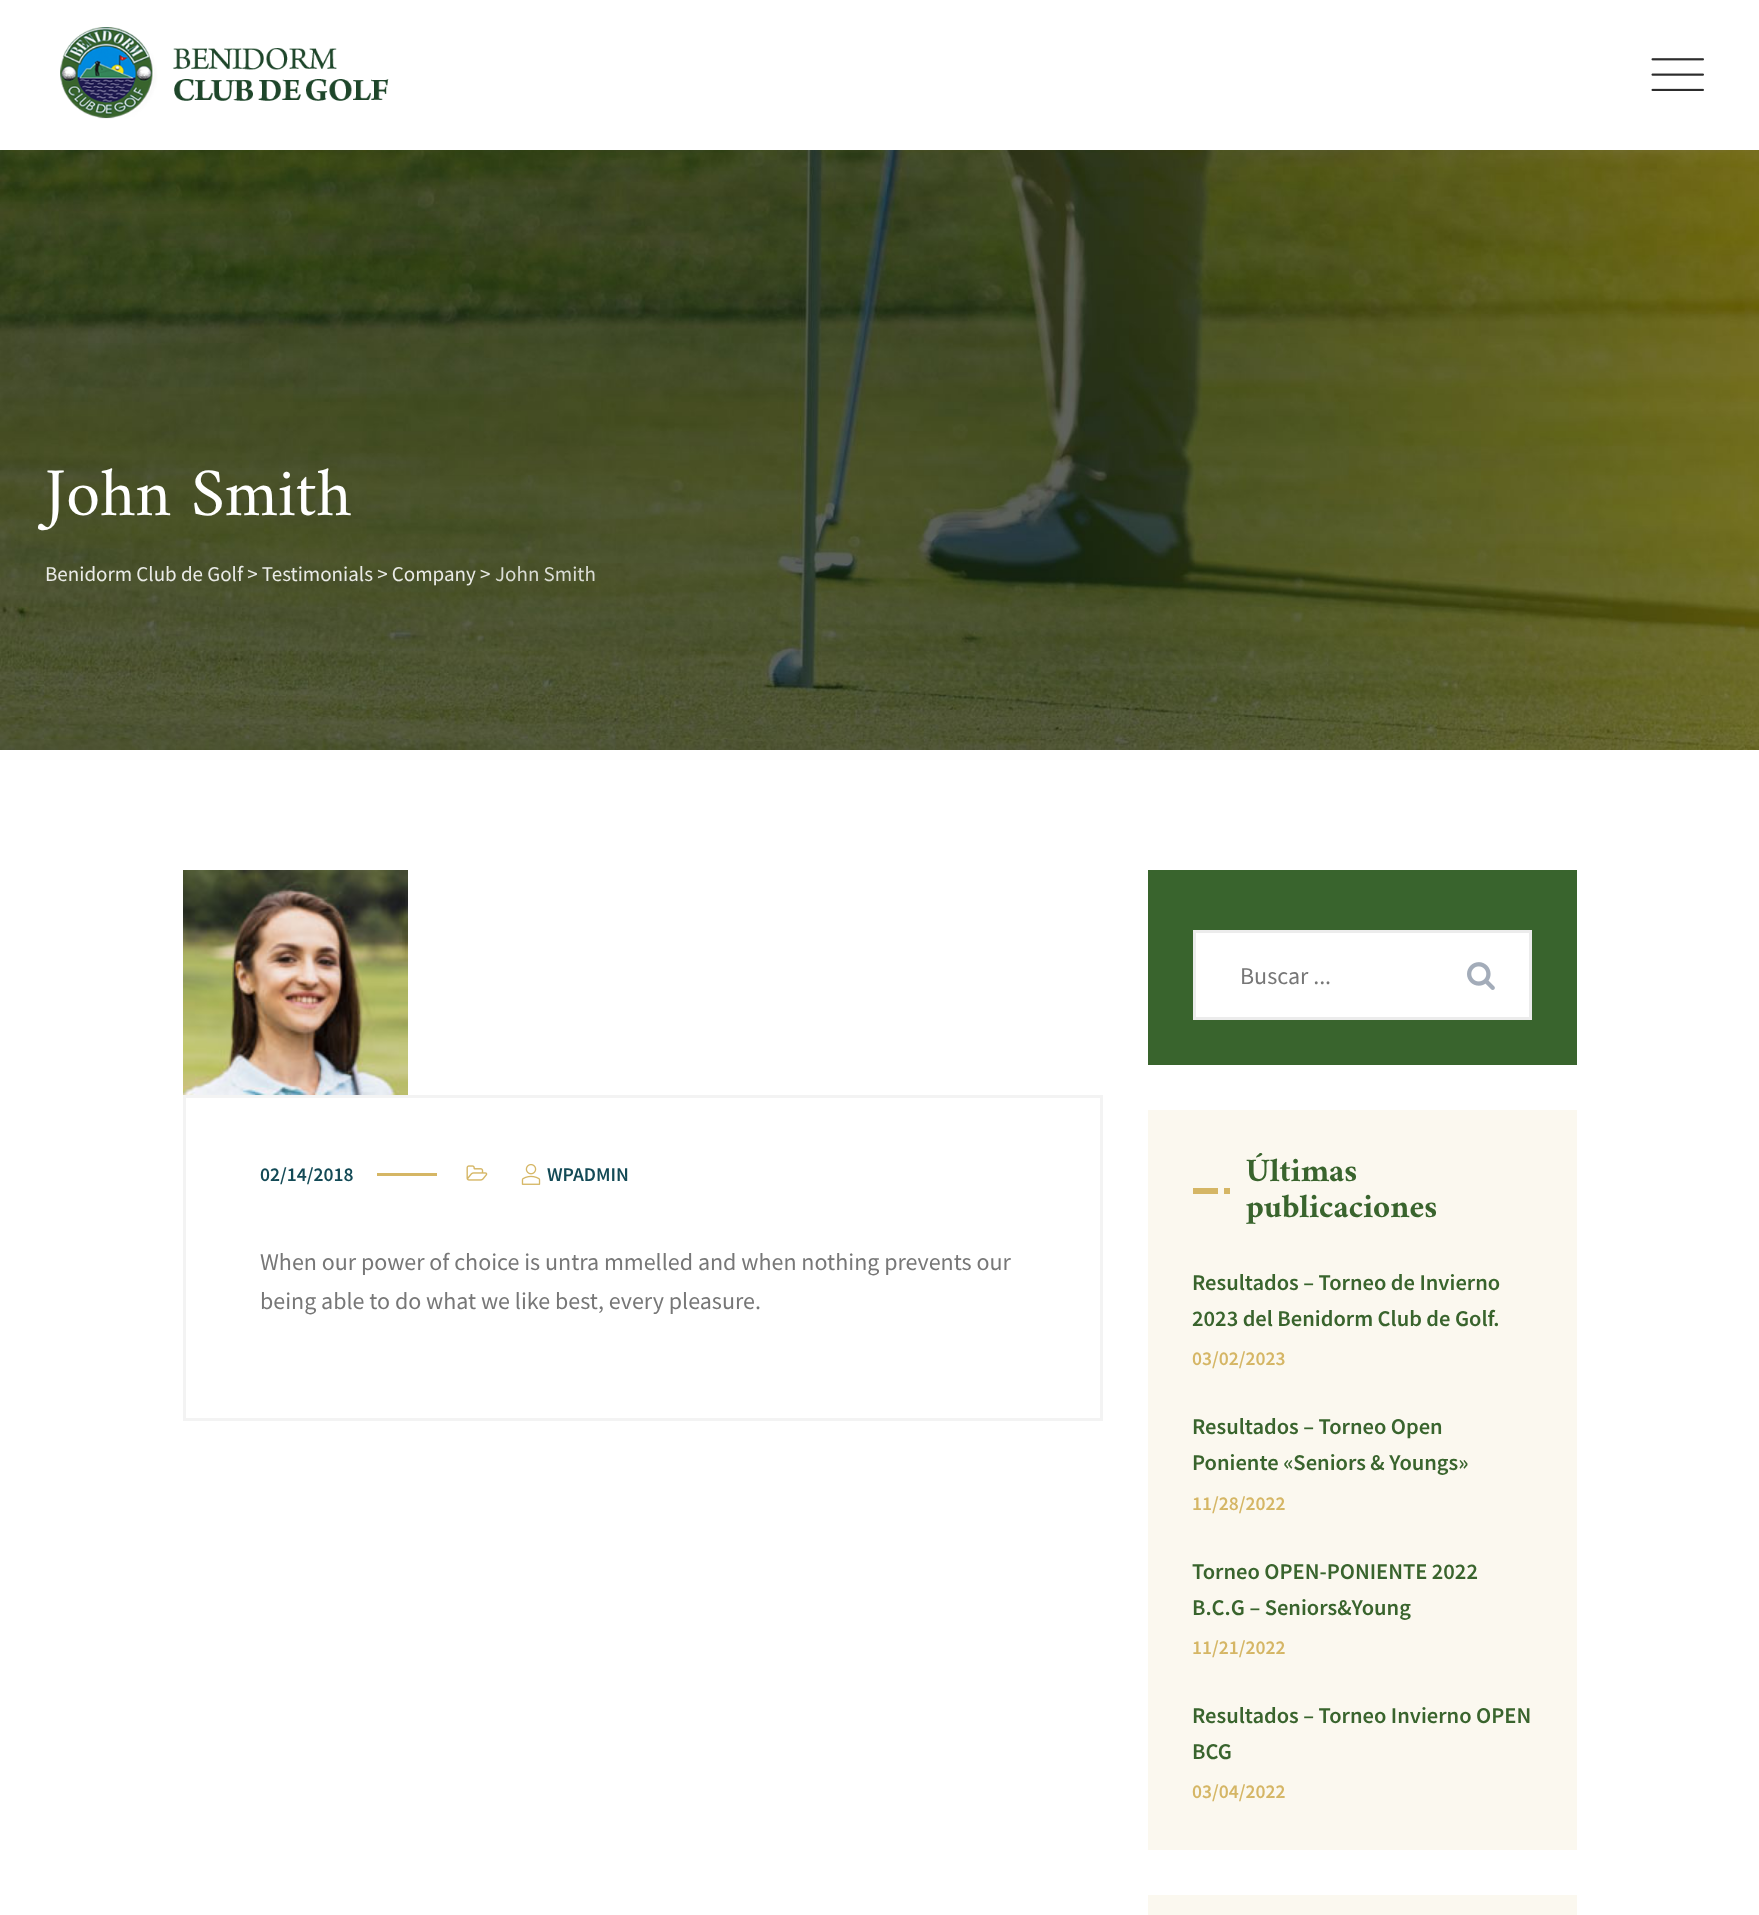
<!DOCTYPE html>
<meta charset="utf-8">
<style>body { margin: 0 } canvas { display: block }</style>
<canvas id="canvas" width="1759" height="1915"></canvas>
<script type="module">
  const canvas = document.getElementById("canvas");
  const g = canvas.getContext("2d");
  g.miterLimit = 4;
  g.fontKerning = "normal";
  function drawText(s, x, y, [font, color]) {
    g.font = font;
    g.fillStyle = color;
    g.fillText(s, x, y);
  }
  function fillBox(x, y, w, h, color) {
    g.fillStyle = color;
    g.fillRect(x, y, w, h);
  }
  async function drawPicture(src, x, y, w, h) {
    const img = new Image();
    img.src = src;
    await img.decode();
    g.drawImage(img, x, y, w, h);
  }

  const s1 = ["69px Amiri", "#FFFFFF"];
  const s2 = ["21px Source Sans Pro", "#EAEBE7"];
  const s3 = ["21px Source Sans Pro", "#DADCD4"];
  const s4 = ["600 19.5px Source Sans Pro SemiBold", "#134A56"];
  const s5 = ["24px Source Sans Pro", "#777777"];
  const s6 = ["bold 33px Amiri", "#39642D"];
  const s7 = ["600 22.5px Source Sans Pro SemiBold", "#39642D"];
  const s8 = ["600 19.5px Source Sans Pro SemiBold", "#D5B665"];

  fillBox(0, 0, 1759, 1915, "#FFFFFF");
  await drawPicture("pic1.png", 60, 27, 329, 92);
  await drawPicture("pic2.png", 1651, 58, 53, 33);
  await drawPicture("pic3.png", 0, 150, 1759, 600);
  drawText("John Smith", 45, 515, s1);
  drawText("Benidorm Club de Golf > Testimonials > Company >", 45, 581, s2);
  drawText("John Smith", 495, 581, s3);
  await drawPicture("pic4.png", 183, 870, 225, 225);
  g.strokeStyle = "#F3F3F3";
  g.lineWidth = 3;
  g.strokeRect(184.5, 1096.5, 917, 323);
  drawText("02/14/2018", 260, 1181, s4);
  fillBox(377, 1173, 60, 3, "#D5B665");
  await drawPicture("pic5.png", 466, 1165, 22, 16);
  await drawPicture("pic6.png", 521, 1164, 20, 21);
  drawText("WPADMIN", 547, 1181, s4);
  drawText("When our power of choice is untra mmelled and when nothing prevents our", 260, 1270, s5);
  drawText("being able to do what we like best, every pleasure.", 260, 1309, s5);
  fillBox(1148, 870, 429, 195, "#39642D");
  g.fillStyle = "#FFFFFF";
  g.beginPath();
  g.rect(1194.5, 931.5, 336, 87);
  g.fill();
  g.strokeStyle = "#ECECEC";
  g.stroke();
  drawText("Buscar ...", 1240, 984, s5);
  await drawPicture("pic7.png", 1467, 962, 28, 28);
  fillBox(1148, 1110, 429, 740, "#FBF8EF");
  drawText("Últimas", 1246, 1181, s6);
  fillBox(1193, 1188, 25, 6, "#D5B665");
  fillBox(1224, 1188, 6, 6, "#D5B665");
  drawText("publicaciones", 1246, 1217, s6);
  drawText("Resultados – Torneo de Invierno", 1192, 1290, s7);
  drawText("2023 del Benidorm Club de Golf.", 1192, 1326, s7);
  drawText("03/02/2023", 1192, 1365, s8);
  drawText("Resultados – Torneo Open", 1192, 1434, s7);
  drawText("Poniente «Seniors & Youngs»", 1192, 1470, s7);
  drawText("11/28/2022", 1192, 1510, s8);
  drawText("Torneo OPEN-PONIENTE 2022", 1192, 1579, s7);
  drawText("B.C.G – Seniors&Young", 1192, 1615, s7);
  drawText("11/21/2022", 1192, 1654, s8);
  drawText("Resultados – Torneo Invierno OPEN", 1192, 1723, s7);
  drawText("BCG", 1192, 1759, s7);
  drawText("03/04/2022", 1192, 1798, s8);
  fillBox(1148, 1895, 429, 20, "#FBF8EF");
</script>
